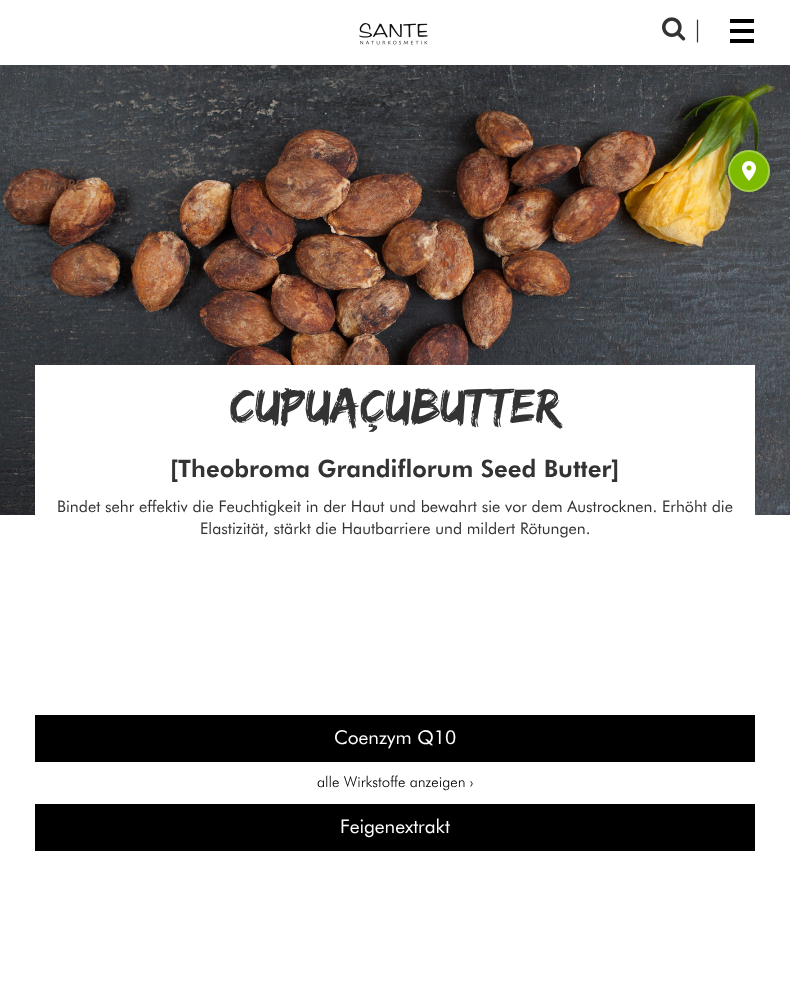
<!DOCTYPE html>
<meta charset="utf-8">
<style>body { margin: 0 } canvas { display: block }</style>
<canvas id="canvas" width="790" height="1004"></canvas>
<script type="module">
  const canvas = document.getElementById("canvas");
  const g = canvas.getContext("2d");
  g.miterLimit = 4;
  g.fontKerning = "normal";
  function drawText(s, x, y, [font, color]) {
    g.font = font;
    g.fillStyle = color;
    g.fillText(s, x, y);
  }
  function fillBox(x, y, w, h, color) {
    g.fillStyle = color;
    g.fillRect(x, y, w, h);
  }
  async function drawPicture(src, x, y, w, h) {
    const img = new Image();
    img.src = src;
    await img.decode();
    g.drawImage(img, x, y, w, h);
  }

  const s1 = ["25px Liberation Serif", "#333333"];
  const s2 = ["16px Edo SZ", "#704835"];
  const s3 = ["50px Edo SZ", "#333333"];
  const s4 = ["24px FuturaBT", "#333333"];
  const s5 = ["16px 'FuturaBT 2'", "#333333"];
  const s6 = ["19px 'FuturaBT 2'", "#FFFFFF"];
  const s7 = ["15px 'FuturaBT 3'", "#000000"];

  fillBox(0, 0, 790, 1004, "#FFFFFF");
  await drawPicture("pic1.png", 359, 23, 69, 22);
  await drawPicture("pic2.png", 662, 17, 24, 24);
  drawText("|", 695, 37, s1);
  fillBox(730, 39, 24, 4, "#000000");
  fillBox(730, 19, 24, 4, "#000000");
  fillBox(730, 29, 24, 4, "#000000");
  await drawPicture("pic4.png", 0, 65, 790, 450);
  drawText("Haare", 40, 190, s2);
  g.fillStyle = "rgba(0, 0, 0, 0.16)";
  g.filter = "blur(15px)";
  g.beginPath();
  g.roundRect(728, 165, 42, 42, 21);
  g.fill();
  g.filter = "none";
  g.fillStyle = "#7DBA00";
  g.beginPath();
  g.arc(749, 171, 21, 0, Math.PI * 2);
  g.fill();
  g.beginPath();
  g.arc(749, 171, 20, 0, Math.PI * 2);
  g.strokeStyle = "rgba(255, 255, 255, 0.3)";
  g.lineWidth = 2;
  g.stroke();
  await drawPicture("pic3.png", 742, 161, 14, 20);
  fillBox(35, 365, 720, 150, "#FFFFFF");
  drawText("Cupuaçubutter", 230, 422, s3);
  drawText("[Theobroma Grandiflorum Seed Butter]", 170, 477, s4);
  drawText("Bindet sehr effektiv die Feuchtigkeit in der Haut und bewahrt sie vor dem Austrocknen. Erhöht die", 57, 512, s5);
  drawText("Elastizität, stärkt die Hautbarriere und mildert Rötungen.", 200, 534, s5);
  fillBox(35, 715, 720, 47, "#000000");
  drawText("Coenzym Q10", 334, 744, s6);
  drawText("alle Wirkstoffe anzeigen ›", 317, 787, s7);
  fillBox(35, 804, 720, 47, "#000000");
  drawText("Feigenextrakt", 340, 833, s6);
</script>
